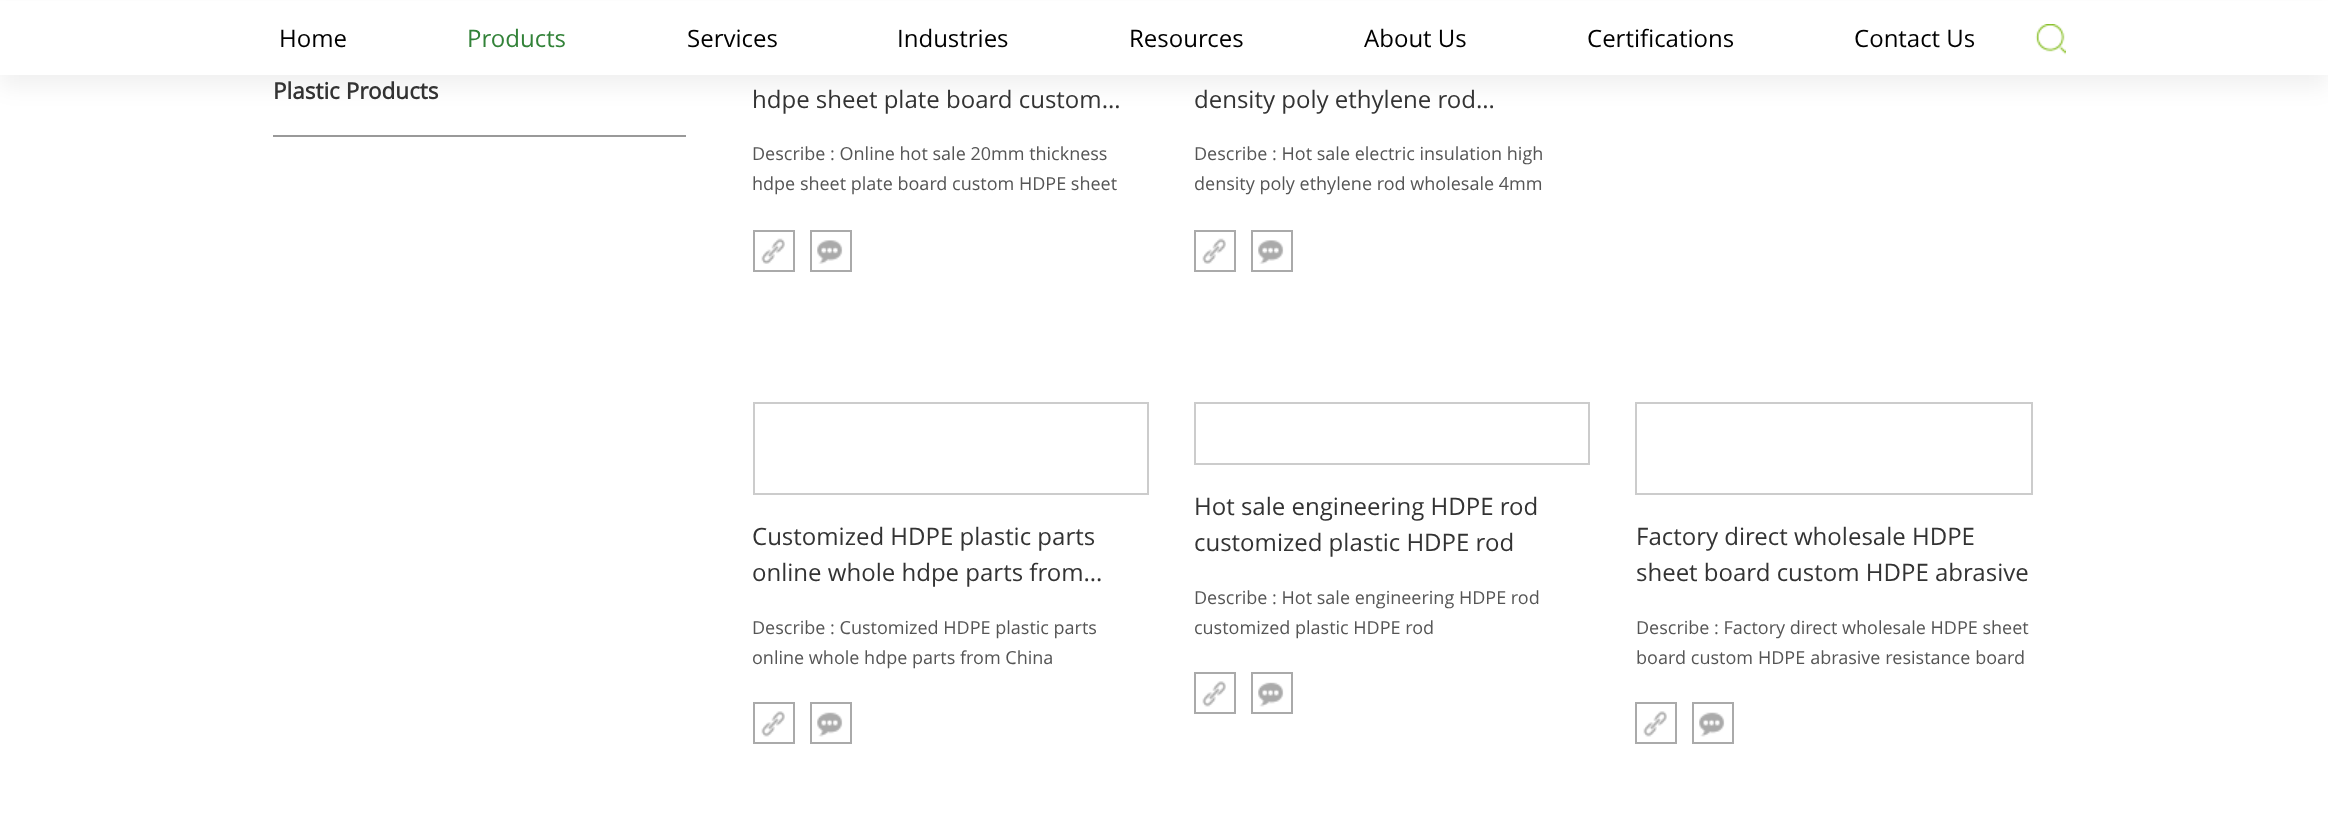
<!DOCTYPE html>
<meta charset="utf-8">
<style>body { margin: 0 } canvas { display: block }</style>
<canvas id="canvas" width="2328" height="835"></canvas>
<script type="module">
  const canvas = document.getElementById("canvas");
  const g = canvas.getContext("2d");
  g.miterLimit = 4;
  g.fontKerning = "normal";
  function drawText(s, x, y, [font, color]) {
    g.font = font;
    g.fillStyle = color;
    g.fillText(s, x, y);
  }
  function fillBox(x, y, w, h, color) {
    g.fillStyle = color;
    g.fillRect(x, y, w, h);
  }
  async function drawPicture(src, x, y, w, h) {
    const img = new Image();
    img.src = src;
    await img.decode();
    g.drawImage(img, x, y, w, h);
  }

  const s1 = ["24px Open Sans", "#000000"];
  const s2 = ["24px Open Sans", "#328238"];
  const s3 = ["bold 22.5px Open Sans", "#333333"];
  const s4 = ["24px Open Sans", "#333333"];
  const s5 = ["18px Open Sans", "#555555"];

  fillBox(0, 0, 2328, 835, "#FFFFFF");
  g.fillStyle = "rgba(0, 0, 0, 0.06)";
  g.filter = "blur(11px)";
  g.beginPath();
  g.rect(0, 12, 2328, 75);
  g.fill();
  g.filter = "none";
  fillBox(0, 1, 2328, 74, "#FFFFFF");
  drawText("Home", 279, 47, s1);
  drawText("Products", 467, 47, s2);
  drawText("Services", 687, 47, s1);
  drawText("Industries", 897, 47, s1);
  drawText("Resources", 1129, 47, s1);
  drawText("About Us", 1364, 47, s1);
  drawText("Certifications", 1587, 47, s1);
  drawText("Contact Us", 1854, 47, s1);
  await drawPicture("pic1.png", 2035, 24, 31, 31);
  fillBox(273, 135, 413, 2, "#999999");
  drawText("Plastic Products", 273, 99, s3);
  drawText("hdpe sheet plate board custom…", 752, 108, s4);
  drawText("Describe : Online hot sale 20mm thickness", 752, 160, s5);
  drawText("hdpe sheet plate board custom HDPE sheet", 752, 190, s5);
  await drawPicture("pic2.png", 761, 238, 24, 26);
  g.strokeStyle = "#AAAAAA";
  g.lineWidth = 2;
  g.strokeRect(754, 231, 40, 40);
  g.strokeRect(811, 231, 40, 40);
  await drawPicture("pic3.png", 817, 240, 26, 24);
  drawText("density poly ethylene rod…", 1194, 108, s4);
  drawText("Describe : Hot sale electric insulation high", 1194, 160, s5);
  drawText("density poly ethylene rod wholesale 4mm", 1194, 190, s5);
  await drawPicture("pic2.png", 1202, 238, 24, 26);
  g.strokeRect(1195, 231, 40, 40);
  g.strokeRect(1252, 231, 40, 40);
  await drawPicture("pic3.png", 1258, 240, 26, 24);
  g.strokeStyle = "#CCCCCC";
  g.strokeRect(754, 403, 394, 91);
  drawText("Customized HDPE plastic parts", 752, 545, s4);
  drawText("online whole hdpe parts from…", 752, 581, s4);
  drawText("Describe : Customized HDPE plastic parts", 752, 634, s5);
  drawText("online whole hdpe parts from China", 752, 664, s5);
  await drawPicture("pic4.png", 761, 711, 24, 26);
  g.strokeStyle = "#AAAAAA";
  g.strokeRect(754, 703, 40, 40);
  g.strokeRect(811, 703, 40, 40);
  await drawPicture("pic5.png", 817, 712, 26, 25);
  g.strokeStyle = "#CCCCCC";
  g.strokeRect(1195, 403, 394, 61);
  drawText("Hot sale engineering HDPE rod", 1194, 515, s4);
  drawText("customized plastic HDPE rod", 1194, 551, s4);
  drawText("Describe : Hot sale engineering HDPE rod", 1194, 604, s5);
  drawText("customized plastic HDPE rod", 1194, 634, s5);
  await drawPicture("pic4.png", 1202, 681, 24, 26);
  g.strokeStyle = "#AAAAAA";
  g.strokeRect(1195, 673, 40, 40);
  g.strokeRect(1252, 673, 40, 40);
  await drawPicture("pic6.png", 1258, 682, 26, 25);
  g.strokeStyle = "#CCCCCC";
  g.strokeRect(1636, 403, 396, 91);
  drawText("Factory direct wholesale HDPE", 1636, 545, s4);
  drawText("sheet board custom HDPE abrasive", 1636, 581, s4);
  drawText("Describe : Factory direct wholesale HDPE sheet", 1636, 634, s5);
  g.wordSpacing = "0.25px";
  drawText("board custom HDPE abrasive resistance board", 1636, 664, s5);
  await drawPicture("pic4.png", 1643, 711, 24, 26);
  g.strokeStyle = "#AAAAAA";
  g.strokeRect(1636, 703, 40, 40);
  g.strokeRect(1693, 703, 40, 40);
  await drawPicture("pic5.png", 1699, 712, 26, 25);
</script>
